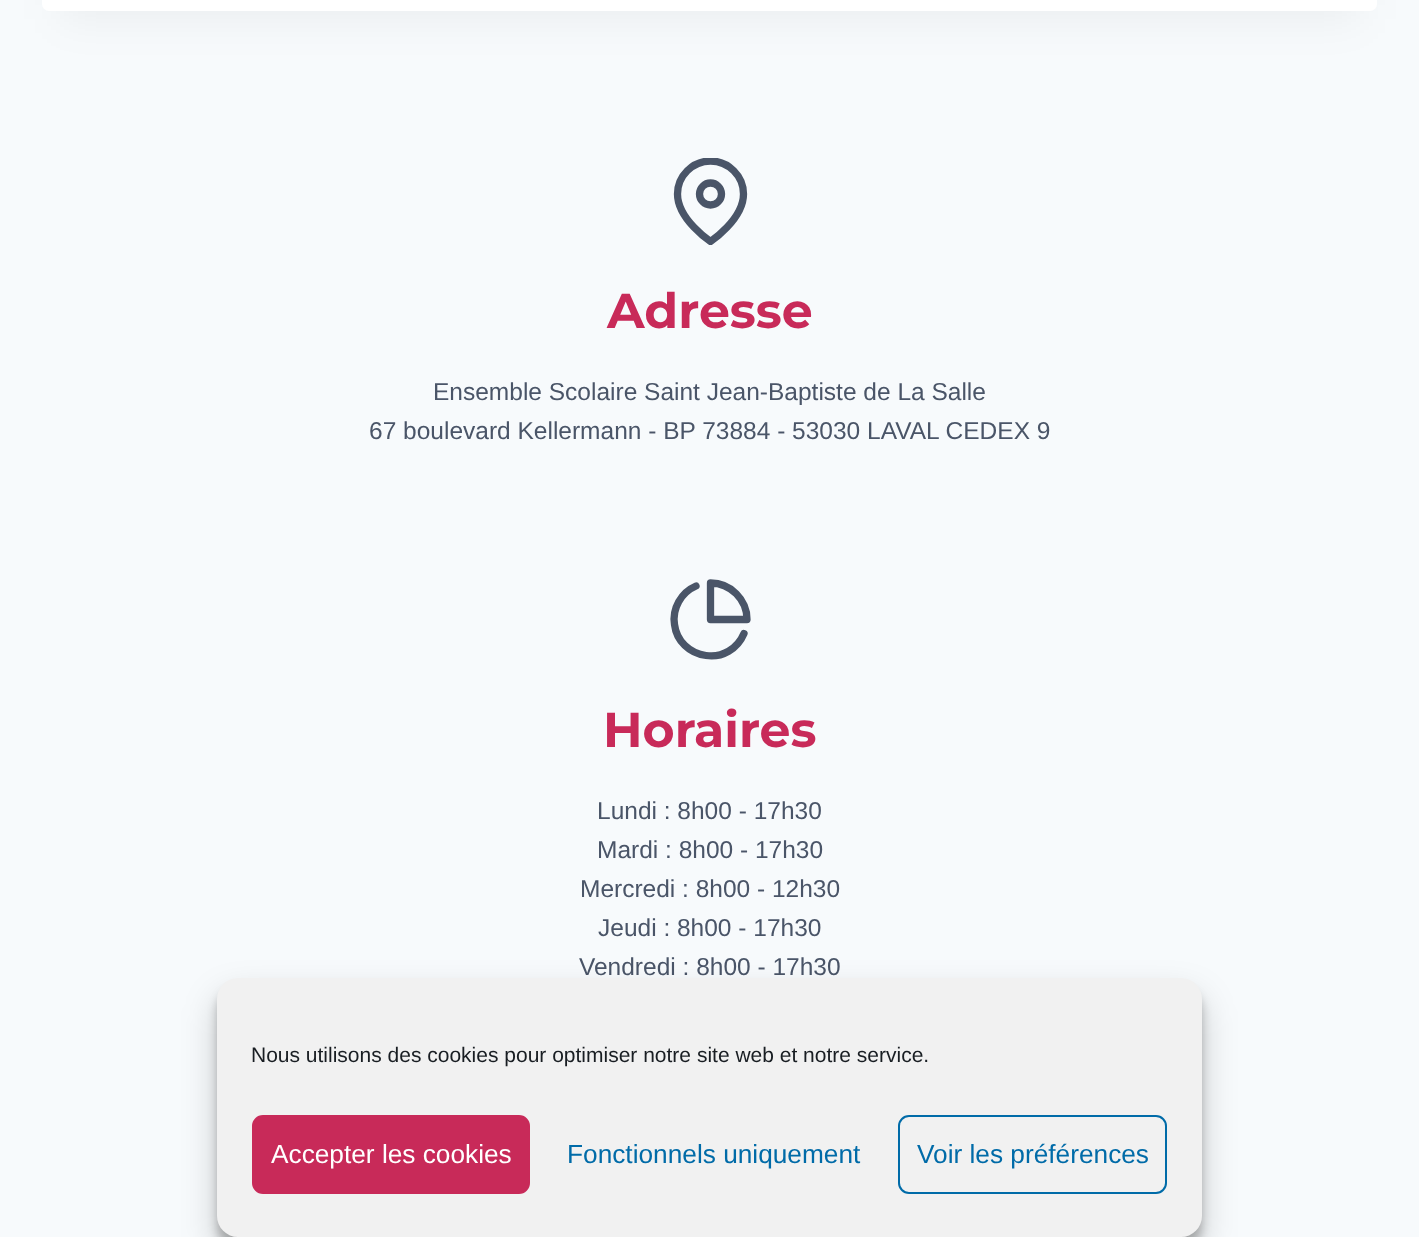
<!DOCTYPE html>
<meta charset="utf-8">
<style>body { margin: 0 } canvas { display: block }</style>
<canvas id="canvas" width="1419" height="1237"></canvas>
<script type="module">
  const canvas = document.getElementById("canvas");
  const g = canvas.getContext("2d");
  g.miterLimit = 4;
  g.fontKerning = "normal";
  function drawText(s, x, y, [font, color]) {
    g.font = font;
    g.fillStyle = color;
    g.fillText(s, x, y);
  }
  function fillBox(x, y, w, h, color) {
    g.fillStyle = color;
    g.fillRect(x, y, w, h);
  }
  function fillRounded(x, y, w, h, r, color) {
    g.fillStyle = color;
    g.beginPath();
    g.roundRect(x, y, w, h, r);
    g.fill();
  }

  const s1 = ["100 49px Montserrat", "#C82A59"];
  const s2 = ["24.5px Liberation Sans", "#4A5568"];
  const s3 = ["21px Liberation Sans", "#191E23"];
  const s4 = ["26.25px Liberation Sans", "#FFFFFF"];
  const s5 = ["26.25px Liberation Sans", "#006BA8"];

  fillBox(0, 0, 1419, 1237, "#F7FAFC");
  g.fillStyle = "rgba(0, 0, 0, 0.05)";
  g.filter = "blur(22px)";
  g.beginPath();
  g.rect(60, -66, 1300, 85);
  g.fill();
  g.filter = "none";
  fillRounded(42, -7, 1335, 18, 7, "#FFFFFF");
  g.save();
  g.beginPath();
  g.rect(667, 158, 87, 87);
  g.clip();
  g.beginPath();
  g.moveTo(743.5, 194);
  g.bezierCurveTo(743.5, 219.5, 710.5, 241.5, 710.5, 241.5);
  g.bezierCurveTo(710.5, 241.5, 677.5, 219.5, 677.5, 194);
  g.bezierCurveTo(677.5, 176, 692.5, 161, 710.5, 161);
  g.bezierCurveTo(728.5, 161, 743.5, 176, 743.5, 194);
  g.closePath();
  g.strokeStyle = "#4A5568";
  g.lineWidth = 7.3;
  g.lineCap = "round";
  g.lineJoin = "round";
  g.stroke();
  g.restore();
  g.beginPath();
  g.arc(710.5, 194, 11, 0, Math.PI * 2);
  g.strokeStyle = "#4A5568";
  g.lineWidth = 7.3;
  g.stroke();
  drawText("Adresse", 607, 328, s1);
  drawText("Ensemble Scolaire Saint Jean-Baptiste de La Salle", 433, 400, s2);
  drawText("67 boulevard Kellermann - BP 73884 - 53030 LAVAL CEDEX 9", 369, 439, s2);
  g.beginPath();
  g.moveTo(744, 633.5);
  g.bezierCurveTo(737.5, 649, 722, 658, 706, 655.5);
  g.bezierCurveTo(689.5, 653.5, 676.5, 641, 674.5, 624.5);
  g.bezierCurveTo(672, 608.5, 681, 592.5, 696, 586);
  g.lineCap = "round";
  g.lineJoin = "round";
  g.stroke();
  g.beginPath();
  g.moveTo(747, 619.5);
  g.bezierCurveTo(747, 599.5, 730.5, 583, 710.5, 583);
  g.lineTo(710.5, 619.5);
  g.closePath();
  g.stroke();
  drawText("Horaires", 603, 747, s1);
  drawText("Lundi : 8h00 - 17h30", 597, 819, s2);
  drawText("Mardi : 8h00 - 17h30", 597, 858, s2);
  drawText("Mercredi : 8h00 - 12h30", 580, 897, s2);
  drawText("Jeudi : 8h00 - 17h30", 598, 936, s2);
  drawText("Vendredi : 8h00 - 17h30", 579, 975, s2);
  g.fillStyle = "rgba(0, 0, 0, 0.23)";
  g.filter = "blur(5px)";
  g.beginPath();
  g.roundRect(217, 989, 985, 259, 21);
  g.fill();
  g.filter = "none";
  g.fillStyle = "rgba(0, 0, 0, 0.19)";
  g.filter = "blur(17.5px)";
  g.beginPath();
  g.roundRect(217, 996, 985, 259, 21);
  g.fill();
  g.filter = "none";
  fillRounded(217, 978, 985, 259, 21, "#F1F1F1");
  drawText("Nous utilisons des cookies pour optimiser notre site web et notre service.", 251, 1062, s3);
  g.fillStyle = "#C82A59";
  g.beginPath();
  g.roundRect(253, 1116, 276, 77, 10);
  g.fill();
  g.strokeStyle = "#C82A59";
  g.lineWidth = 2;
  g.lineJoin = "miter";
  g.stroke();
  drawText("Accepter les cookies", 271, 1163, s4);
  drawText("Fonctionnels uniquement", 567, 1163, s5);
  g.beginPath();
  g.roundRect(899, 1116, 267, 77, 10);
  g.strokeStyle = "#006BA8";
  g.stroke();
  drawText("Voir les préférences", 917, 1163, s5);
</script>
